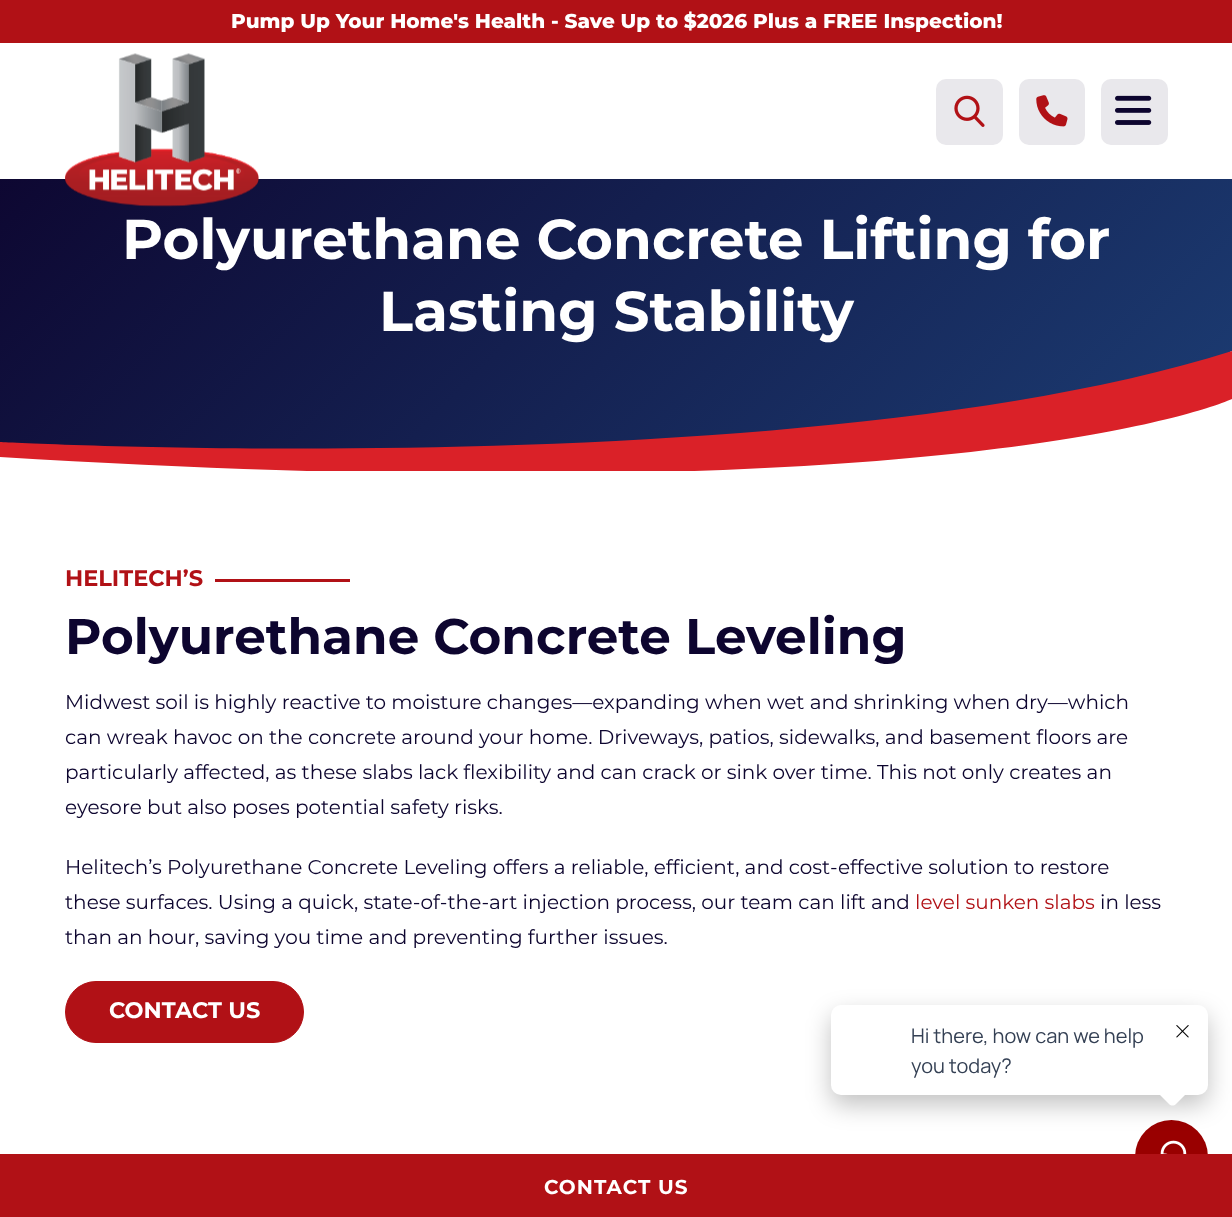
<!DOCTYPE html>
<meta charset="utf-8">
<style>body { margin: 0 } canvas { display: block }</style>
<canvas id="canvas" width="1232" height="1217"></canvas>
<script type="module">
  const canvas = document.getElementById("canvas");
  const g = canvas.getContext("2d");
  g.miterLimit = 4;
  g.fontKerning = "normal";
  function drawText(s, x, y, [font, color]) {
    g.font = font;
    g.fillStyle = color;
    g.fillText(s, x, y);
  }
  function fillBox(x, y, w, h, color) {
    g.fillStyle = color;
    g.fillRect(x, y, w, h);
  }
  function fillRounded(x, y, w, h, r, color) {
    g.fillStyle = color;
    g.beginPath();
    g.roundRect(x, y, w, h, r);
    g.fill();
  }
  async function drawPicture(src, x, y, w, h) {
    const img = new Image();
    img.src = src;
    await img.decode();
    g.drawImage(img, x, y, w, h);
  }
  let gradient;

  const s1 = ["800 20px Montserrat", "#FFFFFF"];
  const s2 = ["bold 56.25px Montserrat", "#FFFFFF"];
  const s3 = ["bold 22.5px Montserrat", "#B11116"];
  const s4 = ["bold 50px Montserrat", "#0D052F"];
  const s5 = ["20px Montserrat", "#0D052F"];
  const s6 = ["20px Montserrat", "#B11116"];
  const s7 = ["bold 22.5px Montserrat", "#FFFFFF"];
  const s8 = ["bold 20px Montserrat", "#FFFFFF"];
  const s9 = ["20px Manrope", "#344054"];

  fillBox(0, 0, 1232, 1217, "#FFFFFF");
  fillBox(0, 0, 1232, 43, "#B11116");
  drawText("Pump Up Your Home's Health - Save Up to $2026 Plus a FREE Inspection!", 231, 28, s1);
  gradient = g.createLinearGradient(219, -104, 1013, 690);
  gradient.addColorStop(0, "#0D052F");
  gradient.addColorStop(1, "#1C3D74");
  g.fillStyle = gradient;
  g.fillRect(0, 179, 1232, 270);
  await drawPicture("pic1.png", 65, 53, 194, 154);
  fillRounded(936, 79, 67, 66, 10, "#E9E8EC");
  await drawPicture("pic2.png", 954, 95, 31, 32);
  fillRounded(1019, 79, 66, 66, 10, "#E9E8EC");
  await drawPicture("pic3.png", 1036, 95, 32, 32);
  fillRounded(1101, 79, 67, 66, 10, "#E9E8EC");
  await drawPicture("pic4.png", 1115, 95, 37, 30);
  drawText("Polyurethane Concrete Lifting for", 122, 259, s2);
  drawText("Lasting Stability", 379, 331, s2);
  g.beginPath();
  g.moveTo(13, 450);
  g.bezierCurveTo(160, 466, 391, 468, 723, 457);
  g.bezierCurveTo(1056, 445, 1232, 351, 1232, 351);
  g.lineTo(1232, 474);
  g.lineTo(0, 474);
  g.lineTo(0, 449);
  g.closePath();
  g.fill();
  g.fillStyle = "#DA2128";
  g.beginPath();
  g.moveTo(0, 442);
  g.bezierCurveTo(0, 442, 808, 485, 1232, 351);
  g.lineTo(1232, 399);
  g.bezierCurveTo(1232, 399, 979, 517, 0, 457);
  g.closePath();
  g.fill();
  fillBox(308, 471, 387, 3, "#FFFFFF");
  drawText("HELITECH’S", 65, 586, s3);
  fillBox(215, 579, 135, 3, "#B11116");
  drawText("Polyurethane Concrete Leveling", 65, 654, s4);
  drawText("Midwest soil is highly reactive to moisture changes—expanding when wet and shrinking when dry—which", 65, 709, s5);
  drawText("can wreak havoc on the concrete around your home. Driveways, patios, sidewalks, and basement floors are", 65, 744, s5);
  drawText("particularly affected, as these slabs lack flexibility and can crack or sink over time. This not only creates an", 65, 779, s5);
  drawText("eyesore but also poses potential safety risks.", 65, 814, s5);
  drawText("Helitech’s Polyurethane Concrete Leveling offers a reliable, efficient, and cost-effective solution to restore", 65, 874, s5);
  drawText("these surfaces. Using a quick, state-of-the-art injection process, our team can lift and", 65, 909, s5);
  drawText("level sunken slabs", 915, 909, s6);
  drawText("in less", 1100, 909, s5);
  drawText("than an hour, saving you time and preventing further issues.", 65, 944, s5);
  g.fillStyle = "#B11116";
  g.beginPath();
  g.roundRect(65.5, 981.5, 238, 61, 30.5);
  g.fill();
  g.strokeStyle = "#B11116";
  g.stroke();
  drawText("CONTACT US", 109, 1018, s7);
  g.fillStyle = "#990000";
  g.beginPath();
  g.arc(1171.5, 1156.5, 36.5, 0, Math.PI * 2);
  g.fill();
  fillBox(0, 1154, 1232, 63, "#B11116");
  g.letterSpacing = "1px";
  drawText("CONTACT US", 544, 1194, s8);
  await drawPicture("pic6.png", 1160, 1140, 27, 14);
  g.fillStyle = "rgba(0, 0, 0, 0.24)";
  g.filter = "blur(12.5px)";
  g.beginPath();
  g.roundRect(831, 1015, 377, 90, 10);
  g.fill();
  g.filter = "none";
  fillRounded(831, 1005, 377, 90, 10, "#FFFFFF");
  g.letterSpacing = "0px";
  drawText("Hi there, how can we help", 911, 1043, s9);
  drawText("you today?", 911, 1073, s9);
  g.fillStyle = "#FFFFFF";
  g.beginPath();
  g.moveTo(1176, 1076);
  g.lineTo(1186.5, 1086.5);
  g.bezierCurveTo(1188.5, 1088.5, 1188.5, 1091.5, 1186.5, 1093.5);
  g.lineTo(1176, 1104);
  g.bezierCurveTo(1174, 1106, 1171, 1106, 1169, 1104);
  g.lineTo(1158.5, 1093.5);
  g.bezierCurveTo(1156.5, 1091.5, 1156.5, 1088.5, 1158.5, 1086.5);
  g.lineTo(1169, 1076);
  g.bezierCurveTo(1171, 1074, 1174, 1074, 1176, 1076);
  g.closePath();
  g.fill();
  await drawPicture("pic5.png", 1176, 1025, 13, 13);
</script>
